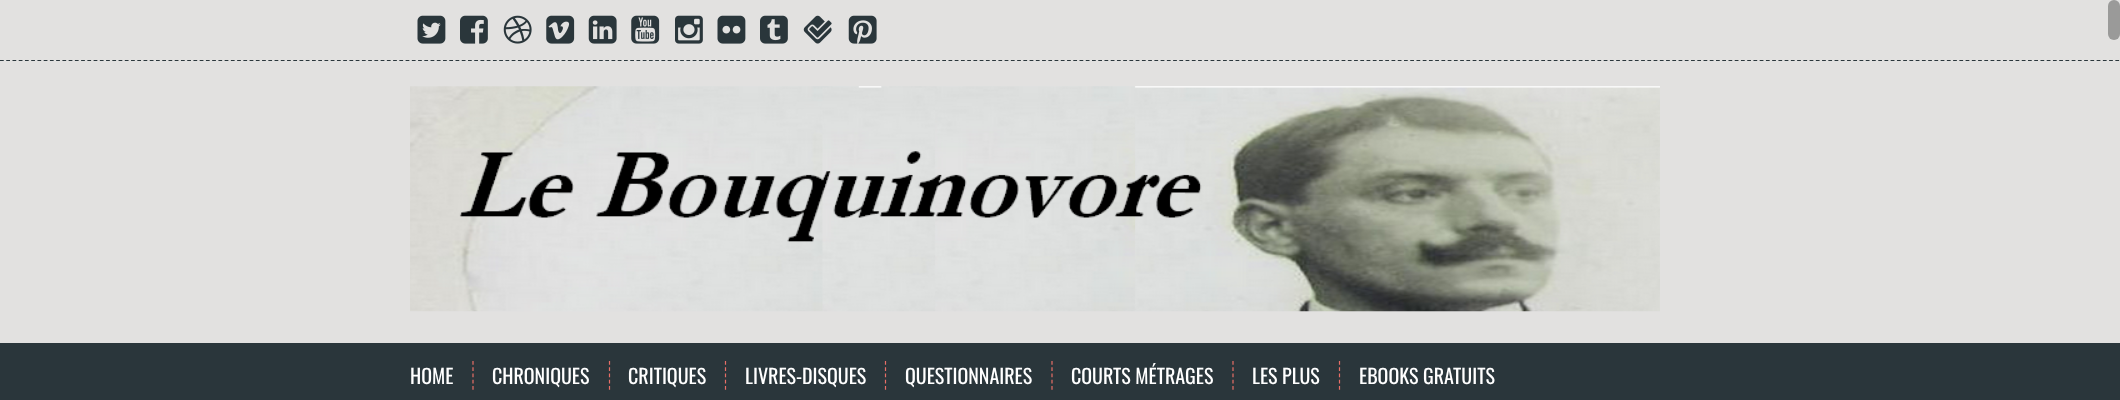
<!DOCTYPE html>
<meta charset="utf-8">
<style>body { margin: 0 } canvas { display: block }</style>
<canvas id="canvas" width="2120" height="400"></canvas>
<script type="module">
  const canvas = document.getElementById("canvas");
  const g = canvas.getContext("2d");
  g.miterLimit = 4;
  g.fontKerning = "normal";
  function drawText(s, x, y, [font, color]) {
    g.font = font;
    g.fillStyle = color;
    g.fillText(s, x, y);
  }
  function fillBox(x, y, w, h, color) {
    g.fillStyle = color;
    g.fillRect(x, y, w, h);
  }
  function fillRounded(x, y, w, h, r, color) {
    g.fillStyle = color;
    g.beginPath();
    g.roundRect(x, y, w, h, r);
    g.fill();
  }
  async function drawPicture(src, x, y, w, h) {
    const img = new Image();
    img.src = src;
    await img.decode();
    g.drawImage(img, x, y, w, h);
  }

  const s1 = ["20px Oswald", "#FFFFFF"];

  fillBox(0, 0, 2120, 400, "#E2E1E0");
  fillRounded(2108, 0, 12, 40, 6, "#9A9A99");
  g.beginPath();
  g.moveTo(0, 60.5);
  g.lineTo(2120, 60.5);
  g.strokeStyle = "#2A363B";
  g.lineWidth = 1.2;
  g.setLineDash([3.75, 2.49]);
  g.stroke();
  await drawPicture("pic1.png", 417, 15, 29, 29);
  await drawPicture("pic2.png", 460, 15, 28, 29);
  await drawPicture("pic3.png", 503, 15, 29, 29);
  await drawPicture("pic4.png", 546, 15, 29, 29);
  await drawPicture("pic5.png", 588, 15, 29, 29);
  await drawPicture("pic6.png", 631, 15, 29, 29);
  await drawPicture("pic7.png", 675, 15, 28, 29);
  await drawPicture("pic8.png", 717, 15, 29, 29);
  await drawPicture("pic9.png", 760, 15, 28, 29);
  await drawPicture("pic10.png", 803, 15, 29, 29);
  await drawPicture("pic11.png", 848, 15, 29, 29);
  fillBox(0, 61, 2119, 1, "#E2E1E0");
  await drawPicture("pic12.png", 410, 86, 1250, 226);
  fillBox(0, 343, 2120, 57, "#2A363B");
  g.beginPath();
  g.moveTo(473, 361);
  g.lineTo(473, 390);
  g.strokeStyle = "#E86F67";
  g.setLineDash([3.75, 2.5]);
  g.stroke();
  drawText("HOME", 410, 384, s1);
  g.beginPath();
  g.moveTo(609.5, 361);
  g.lineTo(609.5, 390);
  g.stroke();
  drawText("CHRONIQUES", 492, 384, s1);
  g.beginPath();
  g.moveTo(725.5, 361);
  g.lineTo(725.5, 390);
  g.stroke();
  drawText("CRITIQUES", 628, 384, s1);
  g.beginPath();
  g.moveTo(885.5, 361);
  g.lineTo(885.5, 390);
  g.stroke();
  drawText("LIVRES-DISQUES", 745, 384, s1);
  g.beginPath();
  g.moveTo(1052, 361);
  g.lineTo(1052, 390);
  g.stroke();
  drawText("QUESTIONNAIRES", 905, 384, s1);
  g.beginPath();
  g.moveTo(1233, 361);
  g.lineTo(1233, 390);
  g.stroke();
  drawText("COURTS MÉTRAGES", 1071, 384, s1);
  g.beginPath();
  g.moveTo(1339.5, 361);
  g.lineTo(1339.5, 390);
  g.stroke();
  drawText("LES PLUS", 1252, 384, s1);
  drawText("EBOOKS GRATUITS", 1359, 384, s1);
</script>
